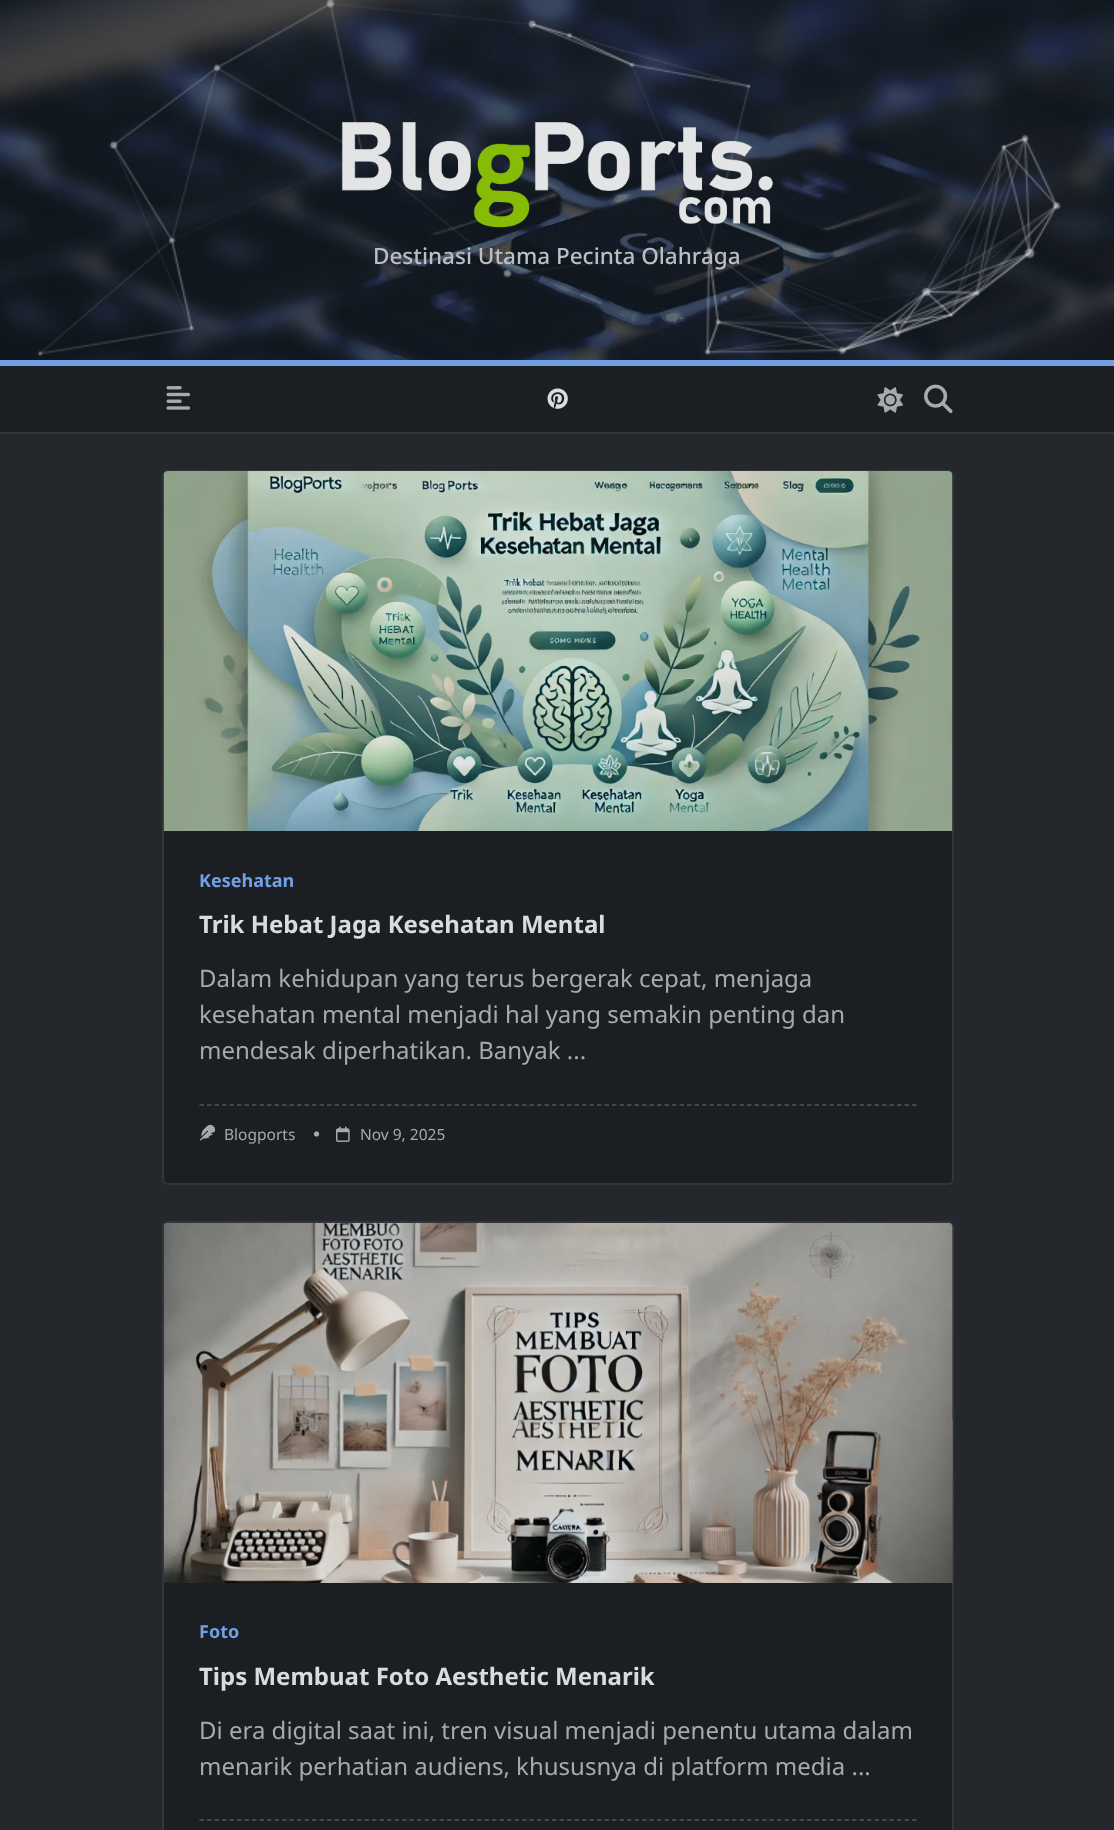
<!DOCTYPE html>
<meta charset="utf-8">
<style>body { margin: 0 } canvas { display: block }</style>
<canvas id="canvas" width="1114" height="1830"></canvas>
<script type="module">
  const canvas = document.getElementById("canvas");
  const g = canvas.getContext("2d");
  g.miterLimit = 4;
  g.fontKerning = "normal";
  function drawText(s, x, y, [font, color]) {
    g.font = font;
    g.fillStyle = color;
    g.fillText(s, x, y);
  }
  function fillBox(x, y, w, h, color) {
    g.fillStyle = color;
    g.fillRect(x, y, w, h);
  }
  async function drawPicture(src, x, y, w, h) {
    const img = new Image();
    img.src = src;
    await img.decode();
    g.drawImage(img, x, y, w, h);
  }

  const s1 = ["500 22.5px Noto Sans", "#BCBFC1"];
  const s2 = ["bold 18px Noto Sans", "#72A0E5"];
  const s3 = ["bold 24px Noto Sans", "#D9DBDE"];
  const s4 = ["24px Noto Sans", "#A5AAAD"];
  const s5 = ["15.5px Noto Sans", "#A5AAAD"];

  fillBox(0, 0, 1114, 1830, "#24282C");
  await drawPicture("pic1.png", 0, 0, 1114, 360);
  await drawPicture("pic2.png", 37, 0, 1024, 356);
  await drawPicture("pic3.png", 341, 122, 432, 106);
  drawText("Destinasi Utama Pecinta Olahraga", 373, 264, s1);
  fillBox(0, 366, 1114, 66, "#1B1E22");
  fillBox(0, 360, 1114, 6, "#72A0E5");
  fillBox(0, 432, 1114, 2, "#343539");
  await drawPicture("pic4.png", 166, 386, 25, 24);
  await drawPicture("pic5.png", 547, 388, 21, 21);
  await drawPicture("pic6.png", 877, 387, 26, 26);
  await drawPicture("pic7.png", 924, 384, 29, 29);
  g.fillStyle = "#1B1E22";
  g.beginPath();
  g.roundRect(163, 471, 790, 713, 5);
  g.fill();
  g.strokeStyle = "#343539";
  g.lineWidth = 2;
  g.stroke();
  await drawPicture("pic8.png", 163, 471, 790, 360);
  drawText("Kesehatan", 199, 887, s2);
  drawText("Trik Hebat Jaga Kesehatan Mental", 199, 933, s3);
  drawText("Dalam kehidupan yang terus bergerak cepat, menjaga", 199, 987, s4);
  drawText("kesehatan mental menjadi hal yang semakin penting dan", 199, 1023, s4);
  drawText("mendesak diperhatikan. Banyak ...", 199, 1059, s4);
  g.beginPath();
  g.moveTo(199.5, 1105);
  g.lineTo(916.5, 1105);
  g.strokeStyle = "#52545A";
  g.lineWidth = 1.5;
  g.setLineDash([4.5, 3]);
  g.stroke();
  await drawPicture("pic9.png", 200, 1124, 16, 17);
  drawText("Blogports", 224, 1140, s5);
  await drawPicture("pic10.png", 313, 1131, 7, 6);
  await drawPicture("pic11.png", 336, 1126, 14, 16);
  drawText("Nov 9, 2025", 360, 1140, s5);
  g.fillStyle = "#1B1E22";
  g.beginPath();
  g.roundRect(163, 1222, 790, 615, 5);
  g.fill();
  g.strokeStyle = "#343539";
  g.lineWidth = 2;
  g.setLineDash([]);
  g.stroke();
  await drawPicture("pic12.png", 164, 1223, 789, 360);
  drawText("Foto", 199, 1638, s2);
  drawText("Tips Membuat Foto Aesthetic Menarik", 199, 1685, s3);
  drawText("Di era digital saat ini, tren visual menjadi penentu utama dalam", 199, 1739, s4);
  drawText("menarik perhatian audiens, khususnya di platform media ...", 199, 1775, s4);
  g.beginPath();
  g.moveTo(199.5, 1820);
  g.lineTo(916.5, 1820);
  g.strokeStyle = "#52545A";
  g.lineWidth = 1.5;
  g.setLineDash([4.5, 3]);
  g.stroke();
</script>
